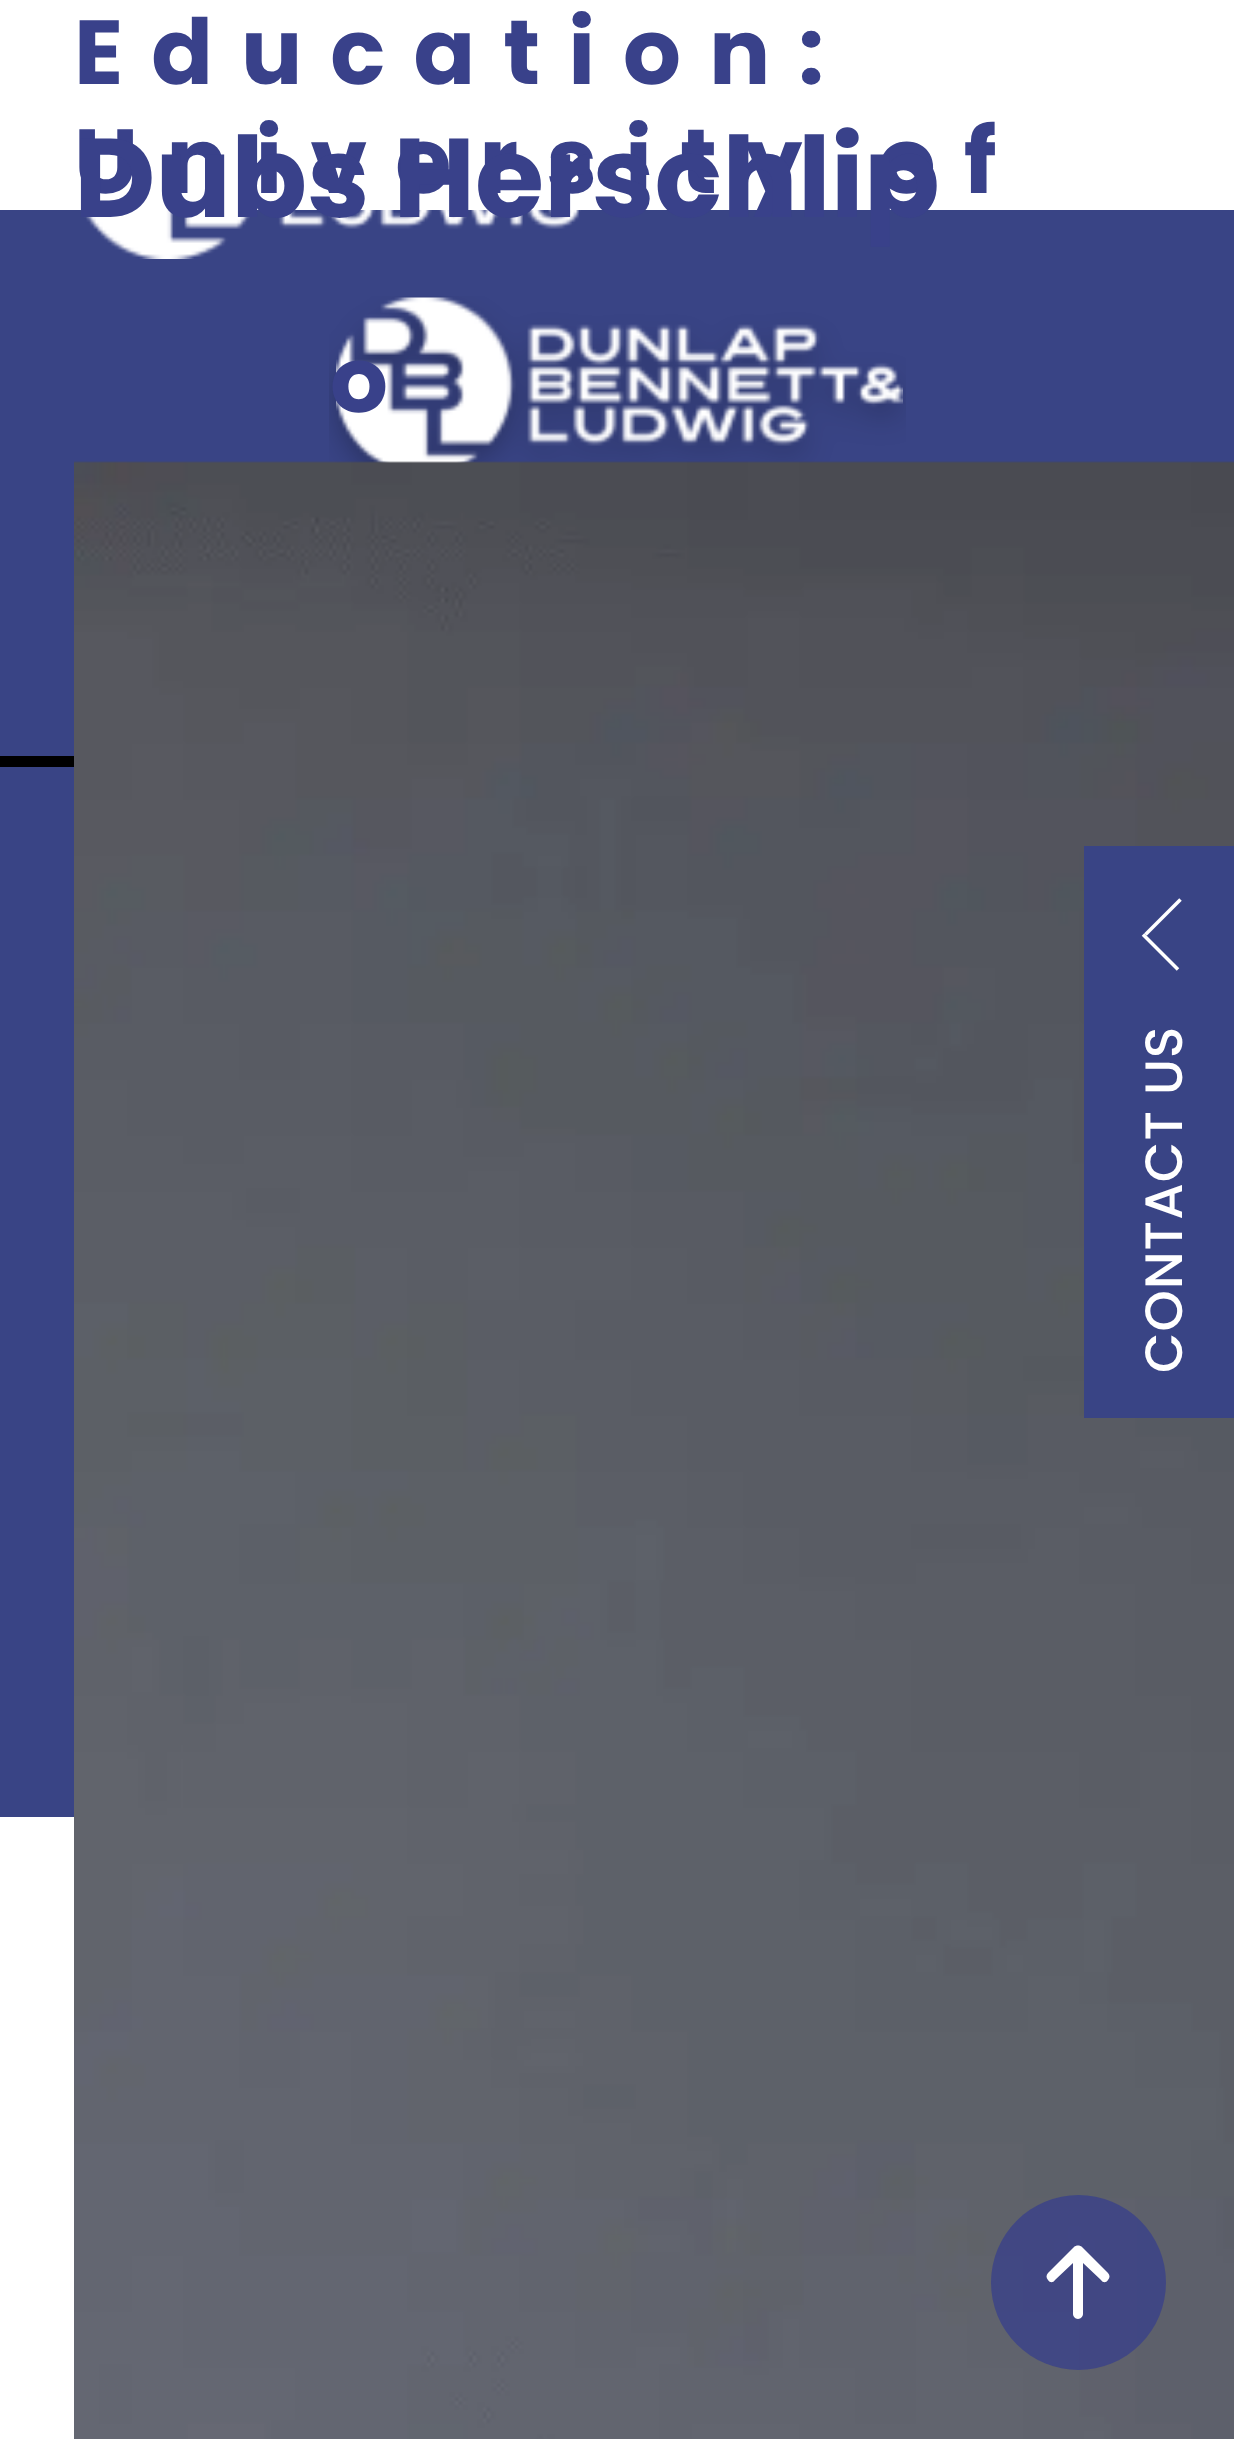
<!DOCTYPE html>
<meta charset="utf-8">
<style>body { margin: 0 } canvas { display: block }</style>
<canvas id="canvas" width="1234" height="2439"></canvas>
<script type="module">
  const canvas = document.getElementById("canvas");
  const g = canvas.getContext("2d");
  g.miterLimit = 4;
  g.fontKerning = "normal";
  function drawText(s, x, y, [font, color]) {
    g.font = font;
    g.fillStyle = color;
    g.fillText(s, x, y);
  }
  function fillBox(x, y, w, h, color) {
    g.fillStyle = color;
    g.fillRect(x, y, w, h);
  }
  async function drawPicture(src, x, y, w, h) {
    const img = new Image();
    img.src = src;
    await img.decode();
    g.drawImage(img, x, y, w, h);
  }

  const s1 = ["bold 91px Poppins", "#39418A"];
  const s2 = ["bold 112px Poppins", "#39418A"];

  fillBox(0, 0, 1234, 2439, "#FFFFFF");
  fillBox(0, 210, 1234, 1607, "#394485");
  fillBox(0, 756, 74, 11, "#000000");
  g.letterSpacing = "28px";
  drawText("Education:", 74, 84, s1);
  await drawPicture("pic3.png", 80, 210, 501, 49);
  drawText("University of", 74, 193, s1);
  await drawPicture("pic2.png", 329, 296, 577, 167);
  drawText("o", 330, 412, s1);
  g.letterSpacing = "0px";
  drawText("Dubs Herschlip", 74, 217, s2);
  await drawPicture("pic1.png", 74, 461, 1160, 1978);
  fillBox(1084, 846, 150, 572, "#394485");
  g.beginPath();
  g.moveTo(1180.5, 899.5);
  g.lineTo(1145.5, 934.5);
  g.strokeStyle = "#FFFFFF";
  g.lineWidth = 3.5;
  g.stroke();
  g.beginPath();
  g.moveTo(1143, 934.5);
  g.lineTo(1178, 969.5);
  g.stroke();
  g.letterSpacing = "1px";
  g.font = "500 52.5px Poppins";
  g.fillStyle = "#FFFFFF";
  g.save();
  g.translate(1182, 1373);
  g.rotate(-90 * Math.PI / 180);
  g.fillText("CONTACT US", 0, 0);
  g.restore();
  g.fillStyle = "rgba(57, 65, 138, 0.8)";
  g.beginPath();
  g.arc(1078.5, 2282.5, 87.5, 0, Math.PI * 2);
  g.fill();
  g.fillStyle = "#FFFFFF";
  g.beginPath();
  g.moveTo(1082, 2247);
  g.bezierCurveTo(1080, 2245, 1076, 2245, 1074, 2247);
  g.lineTo(1048, 2273);
  g.bezierCurveTo(1046, 2275, 1046, 2278, 1048, 2280);
  g.bezierCurveTo(1050, 2283, 1053, 2283, 1055, 2280);
  g.lineTo(1073, 2263);
  g.lineTo(1073, 2314);
  g.bezierCurveTo(1073, 2316, 1075, 2319, 1078, 2319);
  g.bezierCurveTo(1081, 2319, 1083, 2316, 1083, 2314);
  g.lineTo(1083, 2263);
  g.lineTo(1101, 2280);
  g.bezierCurveTo(1103, 2283, 1106, 2283, 1108, 2280);
  g.bezierCurveTo(1110, 2278, 1110, 2275, 1108, 2273);
  g.closePath();
  g.fill();
</script>
